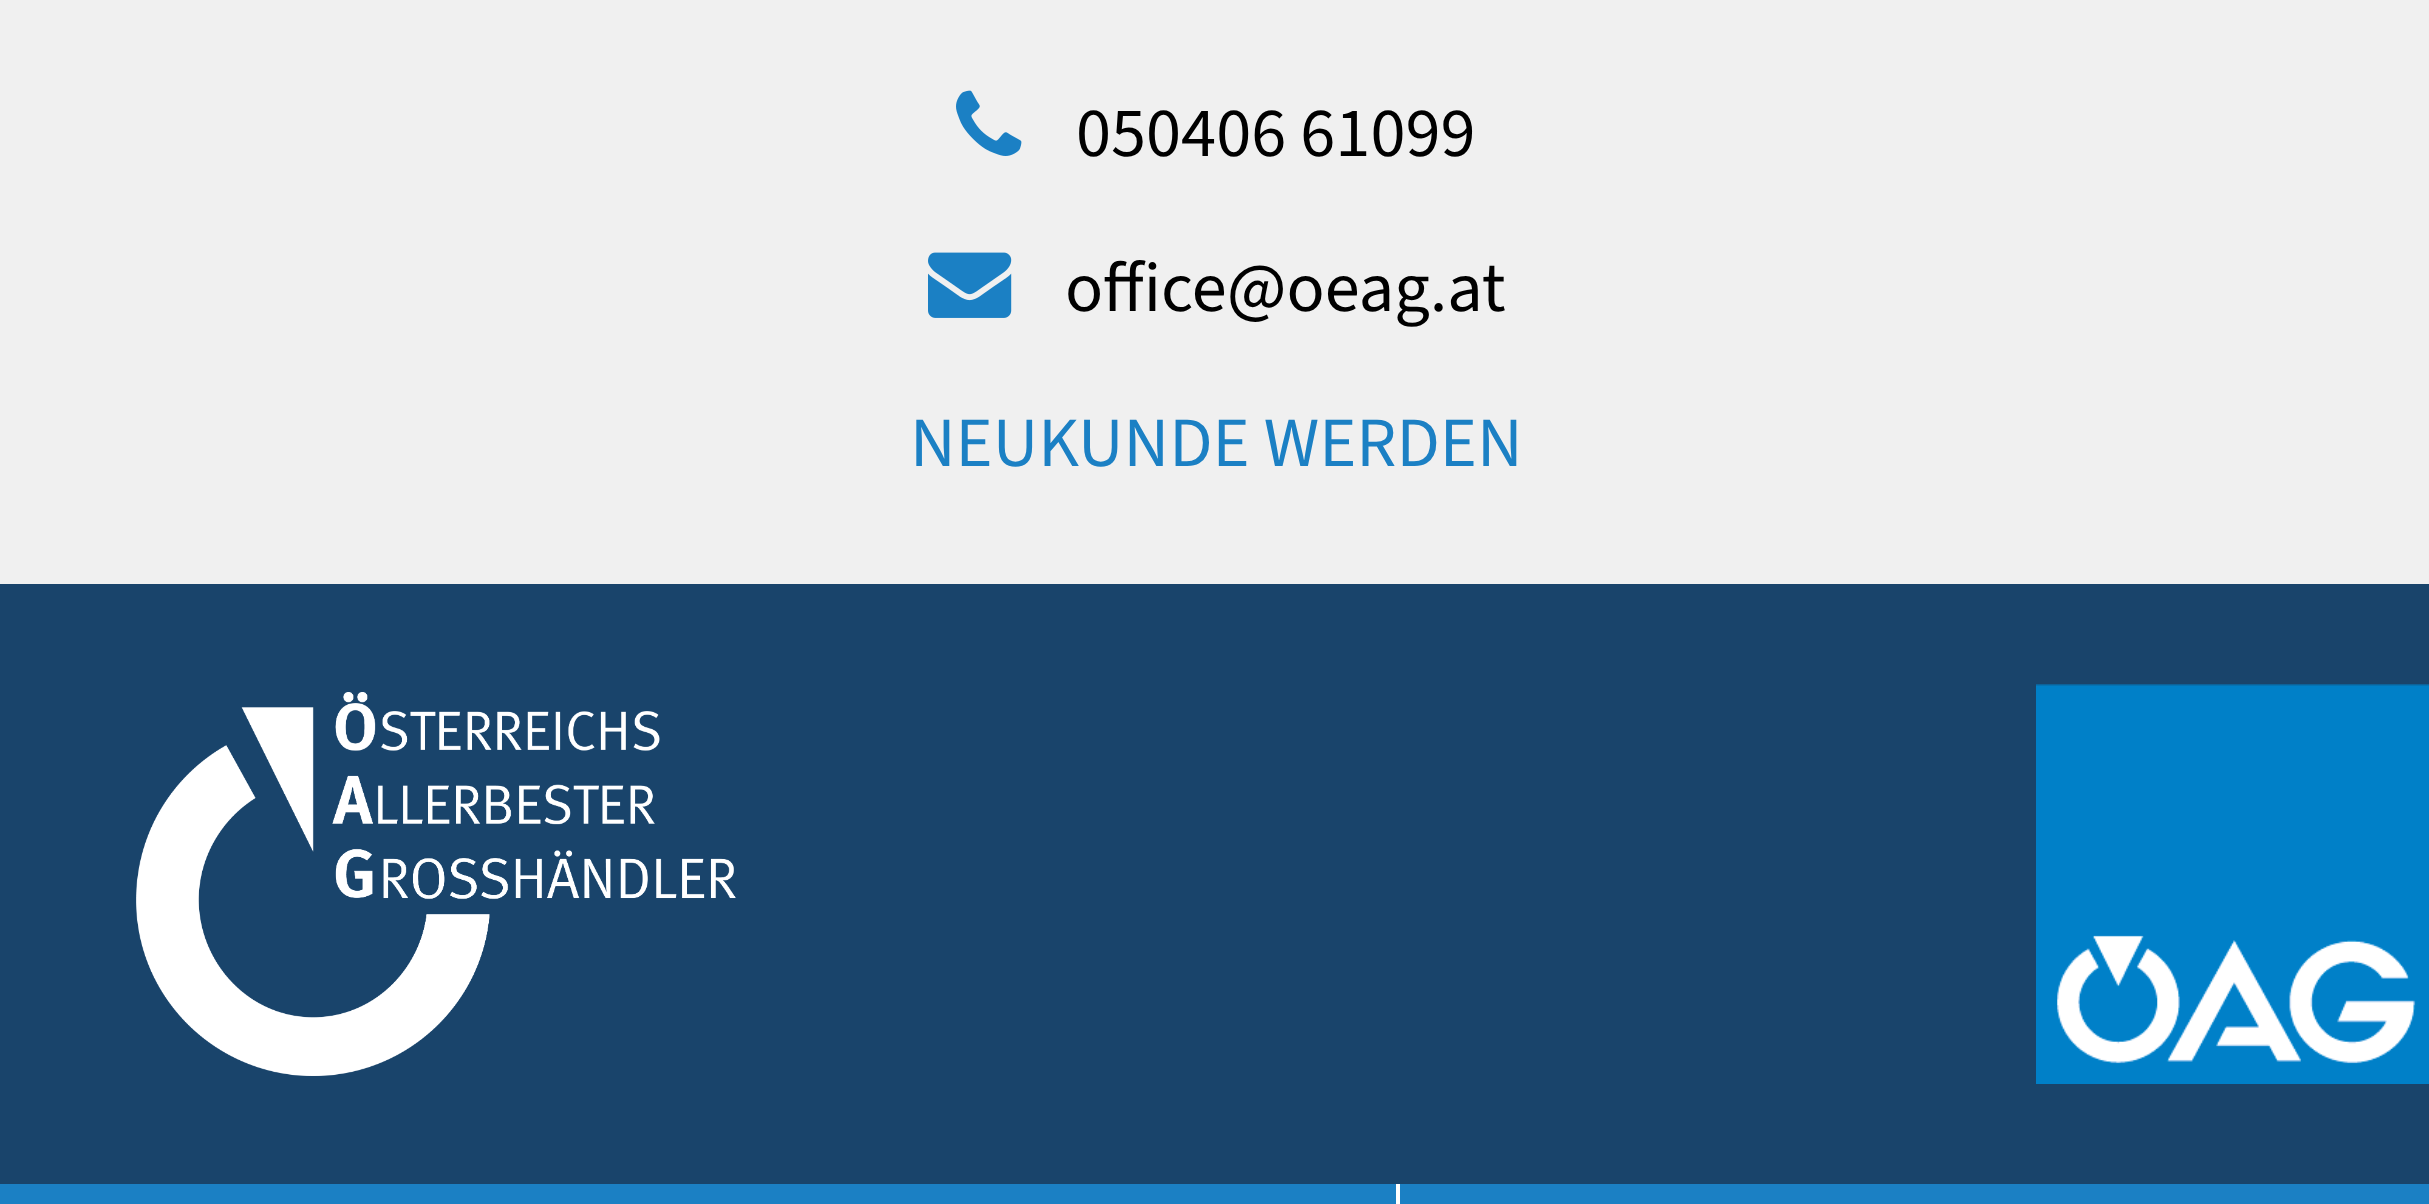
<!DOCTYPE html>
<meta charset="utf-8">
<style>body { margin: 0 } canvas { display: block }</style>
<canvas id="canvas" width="2429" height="1204"></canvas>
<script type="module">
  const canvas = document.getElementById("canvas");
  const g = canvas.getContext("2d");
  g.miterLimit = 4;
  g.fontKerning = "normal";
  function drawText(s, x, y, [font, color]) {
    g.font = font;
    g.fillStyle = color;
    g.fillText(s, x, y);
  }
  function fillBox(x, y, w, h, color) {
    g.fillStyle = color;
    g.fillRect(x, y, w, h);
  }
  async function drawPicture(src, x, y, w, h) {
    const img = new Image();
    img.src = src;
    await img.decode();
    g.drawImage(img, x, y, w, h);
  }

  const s1 = ["70.5px 'Source Sans 3'", "#000000"];
  const s2 = ["70.5px 'Source Sans 3'", "#1B80C4"];

  fillBox(0, 0, 2429, 1204, "#F0F0F0");
  await drawPicture("pic1.png", 956, 90, 66, 66);
  drawText("050406 61099", 1076, 156, s1);
  await drawPicture("pic2.png", 928, 252, 84, 66);
  drawText("office@oeag.at", 1065, 311, s1);
  drawText("NEUKUNDE WERDEN", 910, 466, s2);
  fillBox(0, 584, 2429, 600, "#19446B");
  await drawPicture("pic3.png", 136, 692, 600, 384);
  await drawPicture("pic4.png", 2036, 684, 393, 400);
  fillBox(0, 1184, 2429, 20, "#1B80C4");
  fillBox(1396, 1184, 4, 20, "#FFFFFF");
</script>
